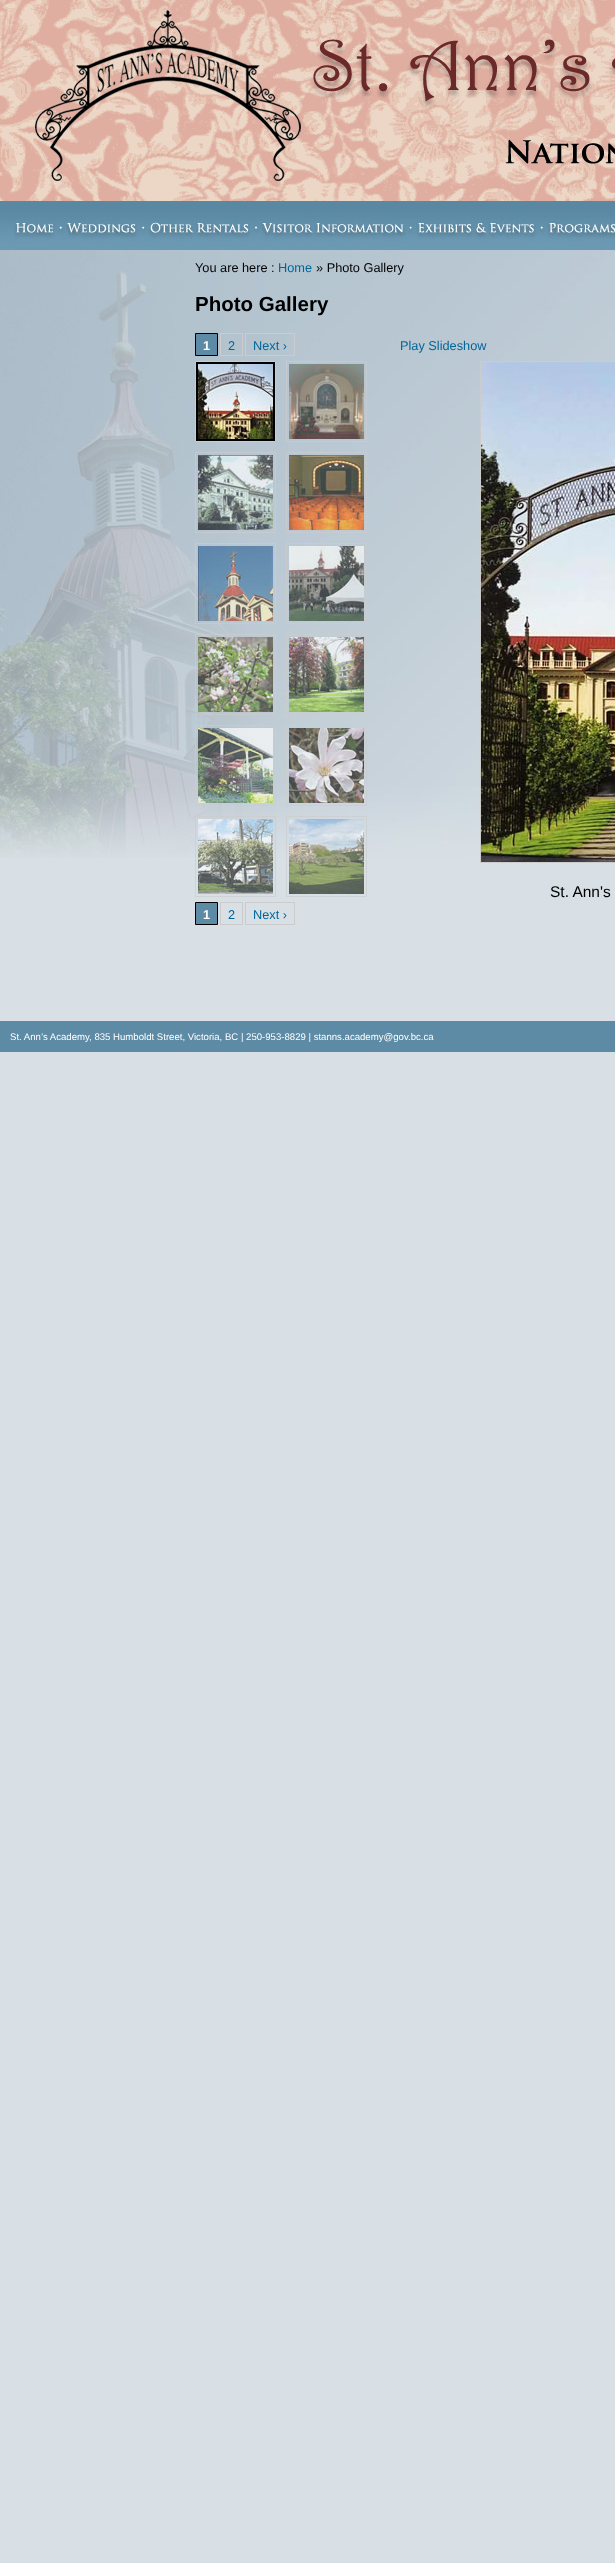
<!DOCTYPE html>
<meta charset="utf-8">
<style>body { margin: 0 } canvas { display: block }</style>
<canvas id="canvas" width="615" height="2563"></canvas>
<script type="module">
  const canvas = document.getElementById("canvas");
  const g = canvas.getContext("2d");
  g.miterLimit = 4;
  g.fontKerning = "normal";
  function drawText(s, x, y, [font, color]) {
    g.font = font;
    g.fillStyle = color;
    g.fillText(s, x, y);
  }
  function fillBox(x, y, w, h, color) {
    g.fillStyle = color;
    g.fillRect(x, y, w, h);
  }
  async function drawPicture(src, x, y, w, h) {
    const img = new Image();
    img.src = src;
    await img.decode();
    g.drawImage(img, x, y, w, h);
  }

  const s1 = ["12.75px Liberation Sans", "#000000"];
  const s2 = ["12.75px Liberation Sans", "#006699"];
  const s3 = ["bold 20.5px Liberation Sans", "#000000"];
  const s4 = ["bold 12.75px Liberation Sans", "#FFFFFF"];
  const s5 = ["15.5px Liberation Sans", "#000000"];
  const s6 = ["9.6px Liberation Sans", "#FFFFFF"];

  fillBox(0, 0, 615, 2563, "#D8E0E5");
  await drawPicture("pic1.png", 0, 0, 615, 201);
  await drawPicture("pic2.png", 0, 201, 61, 49);
  await drawPicture("pic3.png", 61, 201, 83, 49);
  await drawPicture("pic4.png", 144, 201, 112, 49);
  await drawPicture("pic5.png", 256, 201, 155, 49);
  await drawPicture("pic6.png", 411, 201, 131, 49);
  await drawPicture("pic7.png", 542, 201, 73, 49);
  await drawPicture("pic8.png", 0, 250, 615, 608);
  drawText("You are here :", 195, 272, s1);
  drawText("Home", 278, 272, s2);
  drawText("» Photo Gallery", 316, 272, s1);
  drawText("Photo Gallery", 195, 311, s3);
  g.fillStyle = "#5D8BA6";
  g.beginPath();
  g.rect(195.5, 333.5, 22, 22);
  g.fill();
  g.strokeStyle = "#000000";
  g.stroke();
  drawText("1", 203, 350, s4);
  g.strokeStyle = "#CCCCCC";
  g.strokeRect(220.5, 333.5, 22, 22);
  drawText("2", 228, 350, s2);
  g.strokeRect(245.5, 333.5, 49, 22);
  drawText("Next ›", 253, 350, s2);
  g.fillStyle = "#000000";
  g.beginPath();
  g.rect(195.5, 361.5, 80, 80);
  g.fill();
  g.stroke();
  await drawPicture("pic9.png", 198, 364, 75, 75);
  g.strokeStyle = "rgba(204, 204, 204, 0.67)";
  g.strokeRect(286.5, 361.5, 80, 80);
  await drawPicture("pic10.png", 289, 364, 75, 75);
  g.strokeRect(195.5, 452.5, 80, 80);
  await drawPicture("pic11.png", 198, 455, 75, 75);
  g.strokeRect(286.5, 452.5, 80, 80);
  await drawPicture("pic12.png", 289, 455, 75, 75);
  g.strokeRect(195.5, 543.5, 80, 80);
  await drawPicture("pic13.png", 198, 546, 75, 75);
  g.strokeRect(286.5, 543.5, 80, 80);
  await drawPicture("pic14.png", 289, 546, 75, 75);
  g.strokeRect(195.5, 634.5, 80, 80);
  await drawPicture("pic15.png", 198, 637, 75, 75);
  g.strokeRect(286.5, 634.5, 80, 80);
  await drawPicture("pic16.png", 289, 637, 75, 75);
  g.strokeRect(195.5, 725.5, 80, 80);
  await drawPicture("pic17.png", 198, 728, 75, 75);
  g.strokeRect(286.5, 725.5, 80, 80);
  await drawPicture("pic18.png", 289, 728, 75, 75);
  g.strokeRect(195.5, 816.5, 80, 80);
  await drawPicture("pic19.png", 198, 819, 75, 75);
  g.strokeRect(286.5, 816.5, 80, 80);
  await drawPicture("pic20.png", 289, 819, 75, 75);
  g.fillStyle = "#5D8BA6";
  g.beginPath();
  g.rect(195.5, 902.5, 22, 22);
  g.fill();
  g.strokeStyle = "#000000";
  g.stroke();
  drawText("1", 203, 919, s4);
  g.strokeStyle = "#CCCCCC";
  g.strokeRect(220.5, 902.5, 22, 22);
  drawText("2", 228, 919, s2);
  g.strokeRect(245.5, 902.5, 49, 22);
  drawText("Next ›", 253, 919, s2);
  drawText("Play Slideshow", 400, 350, s2);
  g.strokeRect(480.5, 361.5, 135, 501);
  await drawPicture("pic21.png", 481, 362, 134, 500);
  drawText("St. Ann's", 550, 897, s5);
  fillBox(0, 1021, 615, 31, "#5D8BA6");
  drawText("St. Ann’s Academy, 835 Humboldt Street, Victoria, BC | 250-953-8829 | stanns.academy@gov.bc.ca", 10, 1040, s6);
</script>
